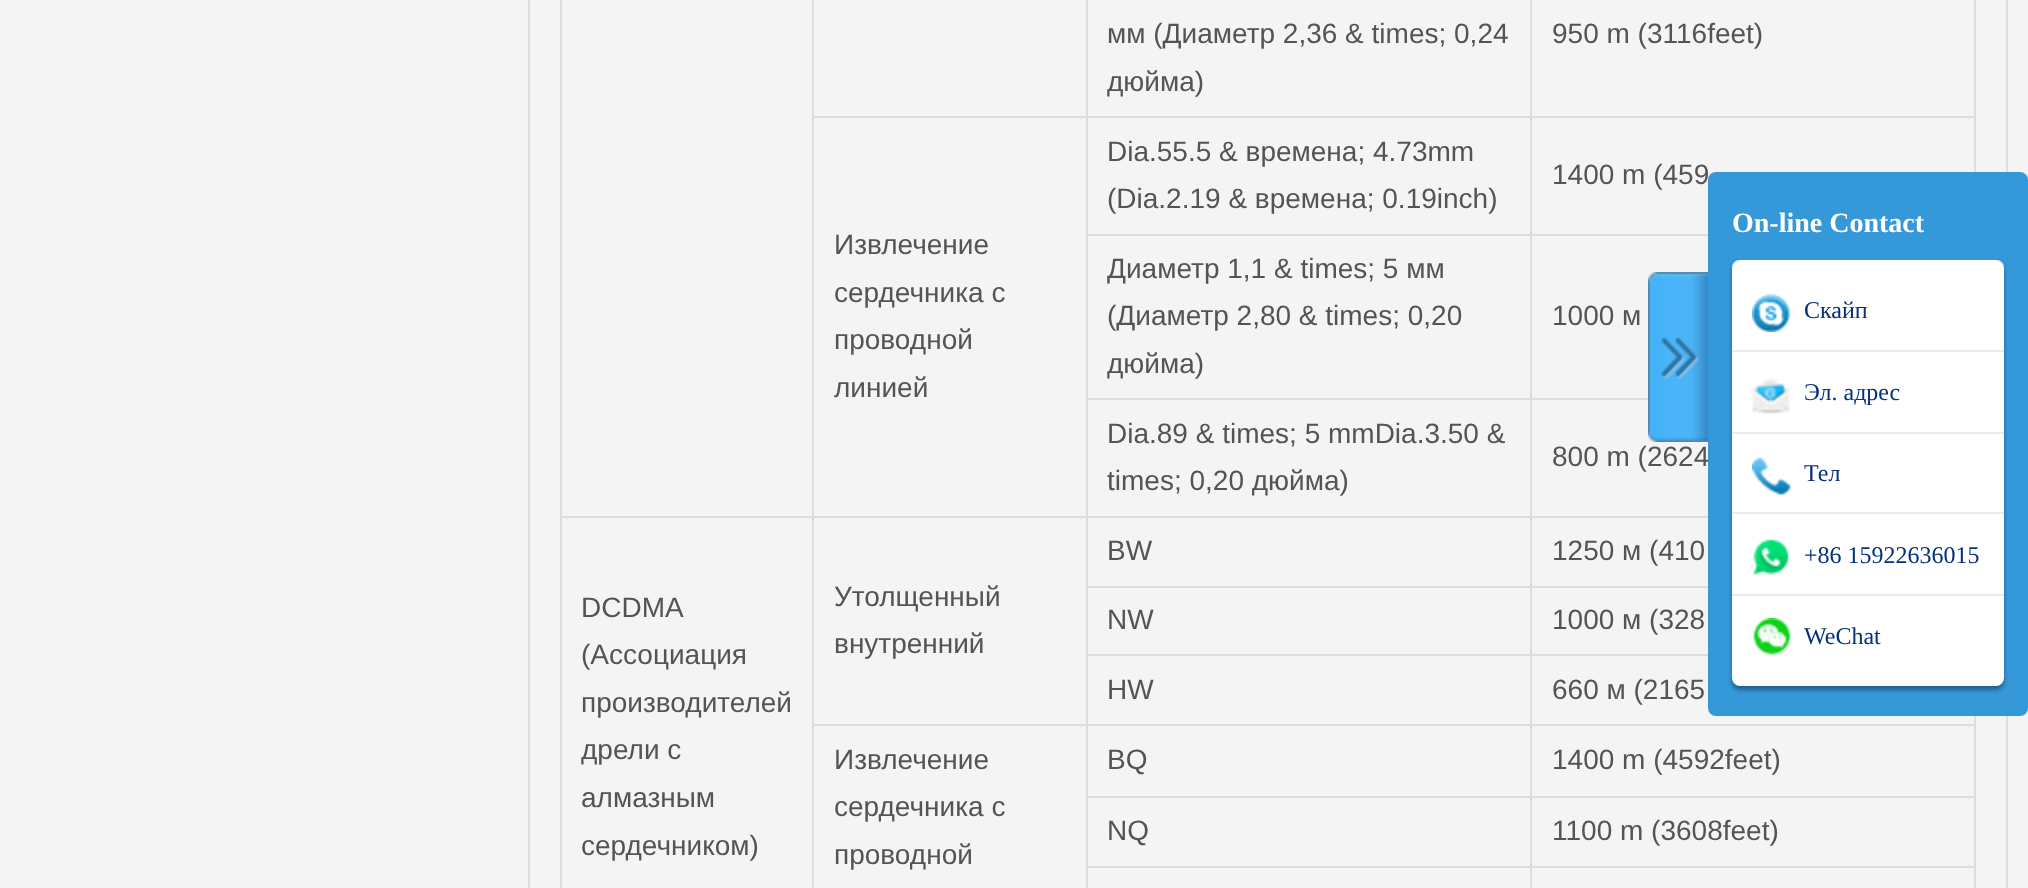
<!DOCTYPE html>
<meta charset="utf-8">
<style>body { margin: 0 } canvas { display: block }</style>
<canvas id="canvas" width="2028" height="888"></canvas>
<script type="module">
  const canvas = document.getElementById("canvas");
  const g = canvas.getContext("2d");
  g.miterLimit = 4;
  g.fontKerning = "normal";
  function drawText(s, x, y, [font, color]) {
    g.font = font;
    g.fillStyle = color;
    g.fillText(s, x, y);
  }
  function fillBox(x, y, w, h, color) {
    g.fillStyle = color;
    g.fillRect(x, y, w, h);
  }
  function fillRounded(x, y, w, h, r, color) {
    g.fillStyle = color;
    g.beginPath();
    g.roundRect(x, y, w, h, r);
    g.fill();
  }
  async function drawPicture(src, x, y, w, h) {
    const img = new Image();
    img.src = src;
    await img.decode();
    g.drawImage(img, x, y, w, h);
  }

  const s1 = ["28px Liberation Sans", "#545454"];
  const s2 = ["bold 28px Liberation Serif", "#FFFFFF"];
  const s3 = ["24px Liberation Serif", "#03317A"];

  fillBox(0, 0, 2028, 888, "#F4F4F4");
  g.strokeStyle = "#DDDDDD";
  g.lineWidth = 2;
  g.strokeRect(529, -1, 1478, 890);
  fillBox(1530, 116, 446, 2, "#DDDDDD");
  fillBox(1530, 234, 178, 2, "#DDDDDD");
  fillBox(1530, 398, 118, 2, "#DDDDDD");
  fillBox(1530, 516, 178, 2, "#DDDDDD");
  fillBox(1530, 586, 178, 2, "#DDDDDD");
  fillBox(1530, 654, 178, 2, "#DDDDDD");
  fillBox(1530, 724, 446, 2, "#DDDDDD");
  fillBox(1530, 796, 446, 2, "#DDDDDD");
  fillBox(1530, 866, 446, 2, "#DDDDDD");
  fillBox(1530, 866, 2, 22, "#DDDDDD");
  fillBox(1086, 866, 446, 2, "#DDDDDD");
  fillBox(1530, 796, 2, 72, "#DDDDDD");
  fillBox(1086, 796, 446, 2, "#DDDDDD");
  fillBox(1530, 724, 2, 74, "#DDDDDD");
  fillBox(1086, 724, 446, 2, "#DDDDDD");
  fillBox(1530, 654, 2, 72, "#DDDDDD");
  fillBox(1086, 654, 446, 2, "#DDDDDD");
  fillBox(1530, 586, 2, 70, "#DDDDDD");
  fillBox(1086, 586, 446, 2, "#DDDDDD");
  fillBox(1530, 516, 2, 72, "#DDDDDD");
  fillBox(1086, 516, 446, 2, "#DDDDDD");
  fillBox(1530, 398, 2, 120, "#DDDDDD");
  fillBox(1086, 398, 446, 2, "#DDDDDD");
  fillBox(1530, 234, 2, 166, "#DDDDDD");
  fillBox(1086, 234, 446, 2, "#DDDDDD");
  fillBox(1530, 116, 2, 120, "#DDDDDD");
  fillBox(1086, 116, 446, 2, "#DDDDDD");
  fillBox(1086, 866, 2, 22, "#DDDDDD");
  fillBox(1086, 796, 2, 72, "#DDDDDD");
  fillBox(1086, 724, 2, 74, "#DDDDDD");
  fillBox(812, 724, 276, 2, "#DDDDDD");
  fillBox(1086, 654, 2, 72, "#DDDDDD");
  fillBox(1086, 586, 2, 70, "#DDDDDD");
  fillBox(1086, 516, 2, 72, "#DDDDDD");
  fillBox(812, 516, 276, 2, "#DDDDDD");
  fillBox(1086, 398, 2, 120, "#DDDDDD");
  fillBox(1086, 234, 2, 166, "#DDDDDD");
  fillBox(1086, 116, 2, 120, "#DDDDDD");
  fillBox(812, 116, 276, 2, "#DDDDDD");
  fillBox(1086, 0, 2, 118, "#DDDDDD");
  drawText("мм (Диаметр 2,36 & times; 0,24", 1107, 43, s1);
  drawText("дюйма)", 1107, 91, s1);
  fillBox(1530, 0, 2, 118, "#DDDDDD");
  drawText("950 m (3116feet)", 1552, 43, s1);
  drawText("Dia.55.5 & времена; 4.73mm", 1107, 161, s1);
  drawText("(Dia.2.19 & времена; 0.19inch)", 1107, 208, s1);
  fillBox(1974, 0, 2, 172, "#DDDDDD");
  drawText("1400 m (459", 1552, 184, s1);
  fillBox(812, 724, 2, 164, "#DDDDDD");
  fillBox(812, 516, 2, 210, "#DDDDDD");
  fillBox(560, 516, 254, 2, "#DDDDDD");
  fillBox(812, 0, 2, 518, "#DDDDDD");
  drawText("Извлечение", 834, 254, s1);
  drawText("сердечника с", 834, 302, s1);
  drawText("проводной", 834, 349, s1);
  drawText("линией", 834, 397, s1);
  drawText("Диаметр 1,1 & times; 5 мм", 1107, 278, s1);
  drawText("(Диаметр 2,80 & times; 0,20", 1107, 325, s1);
  drawText("дюйма)", 1107, 373, s1);
  drawText("1000 м", 1552, 325, s1);
  drawText("Dia.89 & times; 5 mmDia.3.50 &", 1107, 443, s1);
  drawText("times; 0,20 дюйма)", 1107, 490, s1);
  drawText("800 m (2624", 1552, 466, s1);
  drawText("BW", 1107, 560, s1);
  drawText("1250 м (410", 1552, 560, s1);
  fillBox(560, 0, 2, 888, "#DDDDDD");
  drawText("DCDMA", 581, 617, s1);
  drawText("(Ассоциация", 581, 664, s1);
  drawText("производителей", 581, 712, s1);
  drawText("дрели с", 581, 759, s1);
  drawText("алмазным", 581, 807, s1);
  drawText("сердечником)", 581, 855, s1);
  drawText("Утолщенный", 834, 606, s1);
  drawText("внутренний", 834, 653, s1);
  drawText("NW", 1107, 629, s1);
  drawText("1000 м (328", 1552, 629, s1);
  drawText("HW", 1107, 699, s1);
  drawText("660 м (2165", 1552, 699, s1);
  drawText("Извлечение", 834, 769, s1);
  drawText("сердечника с", 834, 816, s1);
  drawText("проводной", 834, 864, s1);
  drawText("BQ", 1107, 769, s1);
  fillBox(1974, 866, 2, 22, "#DDDDDD");
  fillBox(1974, 796, 2, 72, "#DDDDDD");
  fillBox(1974, 716, 2, 82, "#DDDDDD");
  drawText("1400 m (4592feet)", 1552, 769, s1);
  drawText("NQ", 1107, 840, s1);
  drawText("1100 m (3608feet)", 1552, 840, s1);
  await drawPicture("pic1.png", 1648, 272, 60, 170);
  fillRounded(1708, 172, 320, 544, 8, "#3598D8");
  drawText("On-line Contact", 1732, 232, s2);
  g.fillStyle = "rgba(13, 62, 93, 0.6)";
  g.filter = "blur(2px)";
  g.beginPath();
  g.roundRect(1732, 264, 272, 426, 8);
  g.fill();
  g.filter = "none";
  fillRounded(1732, 260, 272, 426, 8, "#FFFFFF");
  await drawPicture("pic2.png", 1752, 293, 39, 39);
  drawText("Скайп", 1804, 318, s3);
  fillBox(1732, 350, 272, 2, "#EAEAEA");
  await drawPicture("pic3.png", 1752, 378, 38, 36);
  drawText("Эл. адрес", 1804, 400, s3);
  fillBox(1732, 432, 272, 2, "#EAEAEA");
  await drawPicture("pic4.png", 1752, 457, 39, 38);
  drawText("Тел", 1804, 481, s3);
  fillBox(1732, 512, 272, 2, "#EAEAEA");
  await drawPicture("pic5.png", 1753, 539, 36, 36);
  drawText("+86 15922636015", 1804, 563, s3);
  fillBox(1732, 594, 272, 2, "#EAEAEA");
  await drawPicture("pic6.png", 1753, 618, 38, 37);
  drawText("WeChat", 1804, 644, s3);
</script>
